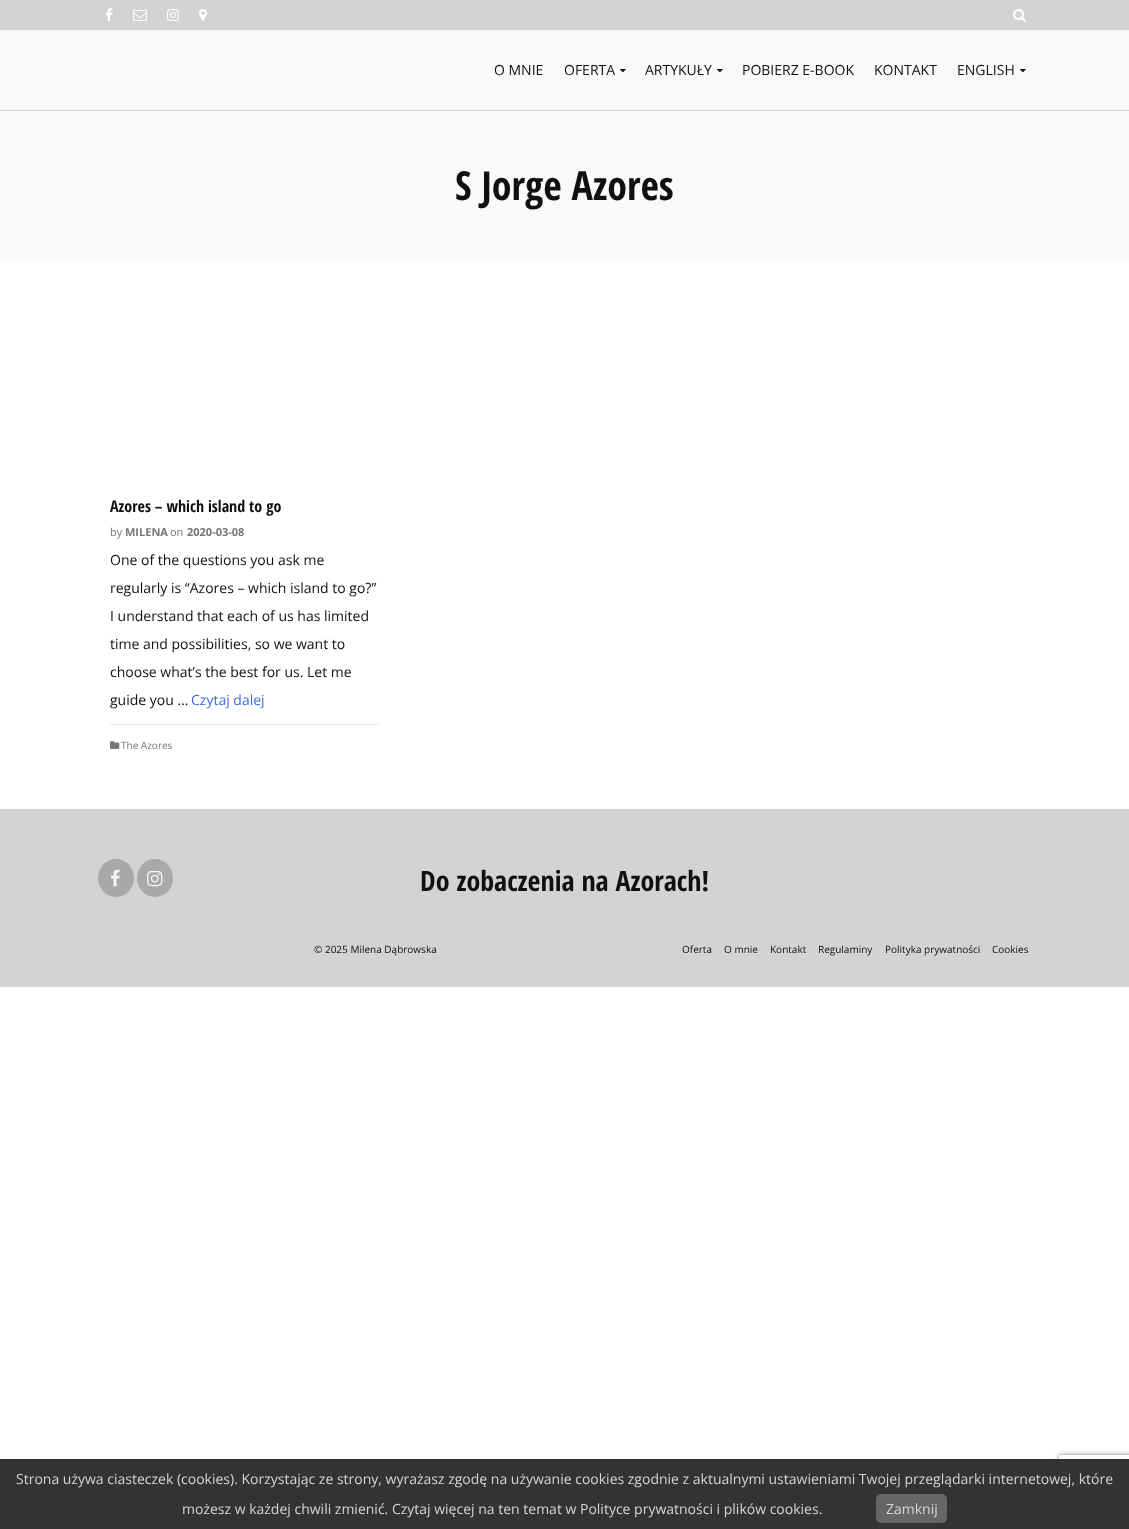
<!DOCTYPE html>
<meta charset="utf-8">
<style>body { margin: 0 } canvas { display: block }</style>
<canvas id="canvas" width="1129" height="1529"></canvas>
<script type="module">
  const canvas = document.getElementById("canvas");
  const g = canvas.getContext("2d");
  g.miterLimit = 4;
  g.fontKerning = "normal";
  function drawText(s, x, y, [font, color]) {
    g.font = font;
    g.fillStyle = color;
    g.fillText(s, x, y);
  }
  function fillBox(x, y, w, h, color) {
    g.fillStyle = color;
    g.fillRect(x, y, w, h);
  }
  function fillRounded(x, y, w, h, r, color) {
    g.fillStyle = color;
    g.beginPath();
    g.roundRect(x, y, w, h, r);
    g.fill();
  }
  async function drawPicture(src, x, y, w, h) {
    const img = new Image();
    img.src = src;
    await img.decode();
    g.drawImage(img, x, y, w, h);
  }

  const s1 = ["14px Open Sans", "#101010"];
  const s2 = ["bold 40px Open Sans Condensed", "#101010"];
  const s3 = ["bold 16px Open Sans Condensed", "#101010"];
  const s4 = ["11px Open Sans", "#777777"];
  const s5 = ["bold 11px Open Sans", "#777777"];
  const s6 = ["14px Open Sans", "#4169E1"];
  const s7 = ["10px Open Sans", "#777777"];
  const s8 = ["bold 28px Open Sans Condensed", "#101010"];
  const s9 = ["10px Open Sans", "#101010"];
  const s10 = ["14px Open Sans", "#D4D4D4"];

  fillBox(0, 0, 1129, 1529, "#FFFFFF");
  fillBox(0, 30, 1129, 230, "#F9F9F9");
  fillBox(0, 110, 1129, 1, "#D3D3D3");
  fillBox(0, 0, 1129, 30, "#D3D3D3");
  await drawPicture("pic1.png", 105, 8, 8, 13);
  await drawPicture("pic2.png", 133, 10, 14, 11);
  await drawPicture("pic3.png", 167, 9, 12, 12);
  await drawPicture("pic4.png", 199, 9, 8, 12);
  await drawPicture("pic5.png", 1013, 9, 13, 13);
  drawText("O MNIE", 494, 75, s1);
  drawText("OFERTA", 564, 75, s1);
  await drawPicture("pic6.png", 620, 69, 6, 4);
  drawText("ARTYKUŁY", 645, 75, s1);
  await drawPicture("pic6.png", 717, 69, 6, 4);
  drawText("POBIERZ E-BOOK", 742, 75, s1);
  drawText("KONTAKT", 874, 75, s1);
  drawText("ENGLISH", 957, 75, s1);
  await drawPicture("pic6.png", 1020, 69, 6, 4);
  drawText("S Jorge Azores", 455, 200, s2);
  drawText("Azores – which island to go", 110, 512, s3);
  drawText("by", 110, 536, s4);
  drawText("MILENA", 125, 536, s5);
  drawText("on", 170, 536, s4);
  drawText("2020-03-08", 187, 536, s5);
  drawText("One of the questions you ask me", 110, 565, s1);
  drawText("regularly is “Azores – which island to go?”", 110, 593, s1);
  drawText("I understand that each of us has limited", 110, 621, s1);
  drawText("time and possibilities, so we want to", 110, 649, s1);
  drawText("choose what’s the best for us. Let me", 110, 677, s1);
  drawText("guide you …", 110, 705, s1);
  drawText("Czytaj dalej", 191, 705, s6);
  fillBox(110, 724, 269, 1, "#E6E6E6");
  await drawPicture("pic7.png", 110, 741, 10, 8);
  drawText("The Azores", 121, 749, s7);
  fillBox(0, 809, 1129, 178, "#D3D3D3");
  g.fillStyle = "#A9A9A9";
  g.beginPath();
  g.ellipse(116, 878, 18, 19, 0, 0, Math.PI * 2);
  g.fill();
  await drawPicture("pic8.png", 111, 869, 9, 18);
  g.beginPath();
  g.ellipse(155, 878, 18, 19, 0, 0, Math.PI * 2);
  g.fill();
  await drawPicture("pic9.png", 147, 870, 16, 17);
  drawText("Do zobaczenia na Azorach!", 420, 891, s8);
  drawText("© 2025 Milena Dąbrowska", 314, 953, s9);
  drawText("Oferta", 682, 953, s9);
  drawText("O mnie", 724, 953, s9);
  drawText("Kontakt", 770, 953, s9);
  drawText("Regulaminy", 818, 953, s9);
  drawText("Polityka prywatności", 885, 953, s9);
  drawText("Cookies", 992, 953, s9);
  g.save();
  g.beginPath();
  g.moveTo(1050, 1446);
  g.lineTo(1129, 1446);
  g.lineTo(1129, 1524);
  g.lineTo(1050, 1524);
  g.closePath();
  g.moveTo(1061, 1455);
  g.lineTo(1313, 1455);
  g.bezierCurveTo(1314, 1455, 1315, 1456, 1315, 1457);
  g.lineTo(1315, 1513);
  g.bezierCurveTo(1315, 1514, 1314, 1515, 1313, 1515);
  g.lineTo(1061, 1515);
  g.bezierCurveTo(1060, 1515, 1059, 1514, 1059, 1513);
  g.lineTo(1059, 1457);
  g.bezierCurveTo(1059, 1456, 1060, 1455, 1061, 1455);
  g.closePath();
  g.clip("evenodd");
  g.fillStyle = "#808080";
  g.filter = "blur(2.5px)";
  g.beginPath();
  g.roundRect(1059, 1455, 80, 60, 2);
  g.fill();
  g.filter = "none";
  g.restore();
  fillBox(0, 1459, 1129, 70, "#333333");
  drawText("Strona używa ciasteczek (cookies). Korzystając ze strony, wyrażasz zgodę na używanie cookies zgodnie z aktualnymi ustawieniami Twojej przeglądarki internetowej, które", 16, 1484, s10);
  drawText("możesz w każdej chwili zmienić. Czytaj więcej na ten temat w Polityce prywatności i plików cookies.", 182, 1514, s10);
  fillRounded(876, 1494, 71, 29, 5, "#666666");
  drawText("Zamknij", 886, 1514, s10);
</script>
